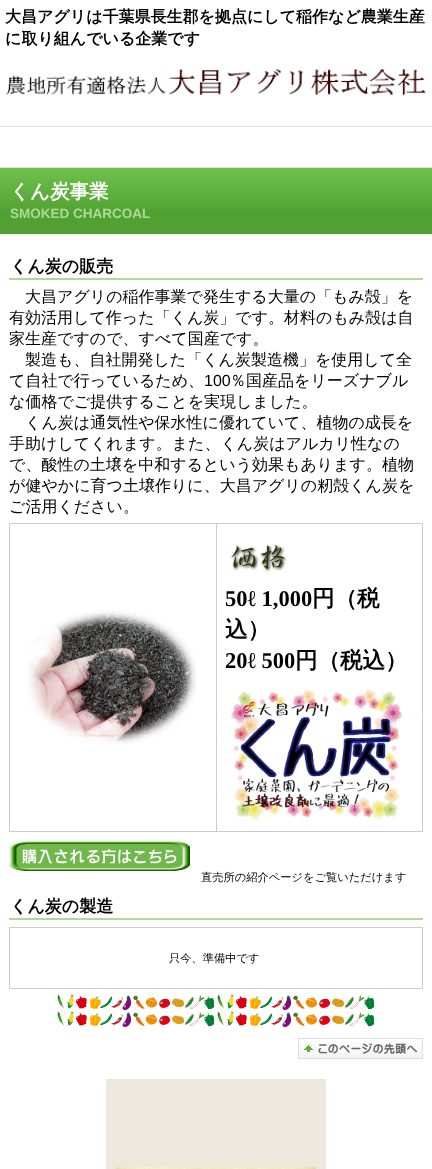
<!DOCTYPE html>
<meta charset="utf-8">
<style>body { margin: 0 } canvas { display: block }</style>
<canvas id="canvas" width="432" height="1169"></canvas>
<script type="module">
  const canvas = document.getElementById("canvas");
  const g = canvas.getContext("2d");
  g.miterLimit = 4;
  g.fontKerning = "normal";
  function drawText(s, x, y, [font, color]) {
    g.font = font;
    g.fillStyle = color;
    g.fillText(s, x, y);
  }
  function fillBox(x, y, w, h, color) {
    g.fillStyle = color;
    g.fillRect(x, y, w, h);
  }
  async function drawPicture(src, x, y, w, h) {
    const img = new Image();
    img.src = src;
    await img.decode();
    g.drawImage(img, x, y, w, h);
  }

  const s1 = ["bold 16px WenQuanYi Zen Hei", "#000000"];
  const s2 = ["bold 19.5px WenQuanYi Zen Hei", "#FFFFFF"];
  const s3 = ["bold 13.5px Liberation Sans", "#ADDA9C"];
  const s4 = ["bold 17px WenQuanYi Zen Hei", "#000000"];
  const s5 = ["500 16px WenQuanYi Zen Hei", "#000000"];
  const s6 = ["16px Liberation Sans", "#000000"];
  const s7 = ["bold 22.5px Liberation Serif", "#000000"];
  const s8 = ["bold 22.5px WenQuanYi Zen Hei", "#000000"];
  const s9 = ["500 11.25px WenQuanYi Zen Hei", "#000000"];

  fillBox(0, 0, 432, 1169, "#FFFFFF");
  drawText("大昌アグリは千葉県長生郡を拠点にして稲作など農業生産", 5, 22, s1);
  drawText("に取り組んでいる企業です", 5, 44, s1);
  await drawPicture("pic1.png", 5, 69, 421, 27);
  fillBox(0, 126, 432, 1, "#DDDDDD");
  fillBox(0, 167, 432, 1, "#DDDDDD");
  fillBox(0, 209, 432, 25, "#50A131");
  await drawPicture("pic2.png", 0, 168, 432, 41);
  drawText("くん炭事業", 10, 198, s2);
  drawText("SMOKED CHARCOAL", 10, 218, s3);
  fillBox(9, 278, 414, 2, "#ADDA9C");
  drawText("くん炭の販売", 10, 272, s4);
  drawText("大昌アグリの稲作事業で発生する大量の「もみ殻」を", 25, 302, s5);
  drawText("有効活用して作った「くん炭」です。材料のもみ殻は自", 9, 323, s5);
  drawText("家生産ですので、すべて国産です。", 9, 344, s5);
  drawText("製造も、自社開発した「くん炭製造機」を使用して全", 25, 365, s5);
  drawText("て自社で行っているため、", 9, 386, s5);
  drawText("100", 204, 386, s6);
  drawText("％国産品をリーズナブル", 230, 386, s5);
  drawText("な価格でご提供することを実現しました。", 9, 407, s5);
  drawText("くん炭は通気性や保水性に優れていて、植物の成長を", 25, 428, s5);
  drawText("手助けしてくれます。また、くん炭はアルカリ性なの", 9, 449, s5);
  drawText("で、酸性の土壌を中和するという効果もあります。植物", 9, 470, s5);
  drawText("が健やかに育つ土壌作りに、大昌アグリの籾殻くん炭を", 9, 491, s5);
  drawText("ご活用ください。", 9, 512, s5);
  fillBox(9, 523, 414, 1, "#CCCCCC");
  fillBox(9, 523, 1, 309, "#CCCCCC");
  fillBox(422, 523, 1, 309, "#CCCCCC");
  fillBox(216, 831, 207, 1, "#CCCCCC");
  fillBox(216, 523, 1, 309, "#CCCCCC");
  fillBox(9, 831, 208, 1, "#CCCCCC");
  await drawPicture("pic3.png", 27, 610, 170, 135);
  await drawPicture("pic4.png", 231, 544, 56, 28);
  drawText("50ℓ 1,000", 225, 606, s7);
  drawText("円（税", 312, 606, s8);
  drawText("込）", 225, 637, s8);
  drawText("20ℓ 500", 225, 668, s7);
  drawText("円（税込）", 295, 668, s8);
  await drawPicture("pic5.png", 231, 689, 172, 132);
  await drawPicture("pic6.png", 9, 841, 181, 30);
  drawText("直売所の紹介ページをご覧いただけます", 201, 881, s9);
  fillBox(9, 918, 414, 2, "#ADDA9C");
  drawText("くん炭の製造", 10, 912, s4);
  fillBox(9, 927, 1, 62, "#CCCCCC");
  fillBox(9, 927, 414, 1, "#CCCCCC");
  fillBox(422, 927, 1, 62, "#CCCCCC");
  fillBox(9, 988, 414, 1, "#CCCCCC");
  drawText("只今、準備中です", 169, 962, s9);
  await drawPicture("pic7.png", 57, 994, 318, 17);
  await drawPicture("pic7.png", 57, 1011, 318, 17);
  await drawPicture("pic8.png", 298, 1038, 125, 21);
  fillBox(106, 1079, 220, 90, "#ECE8DD");
  await drawPicture("pic9.png", 116, 1167, 200, 2);
</script>
